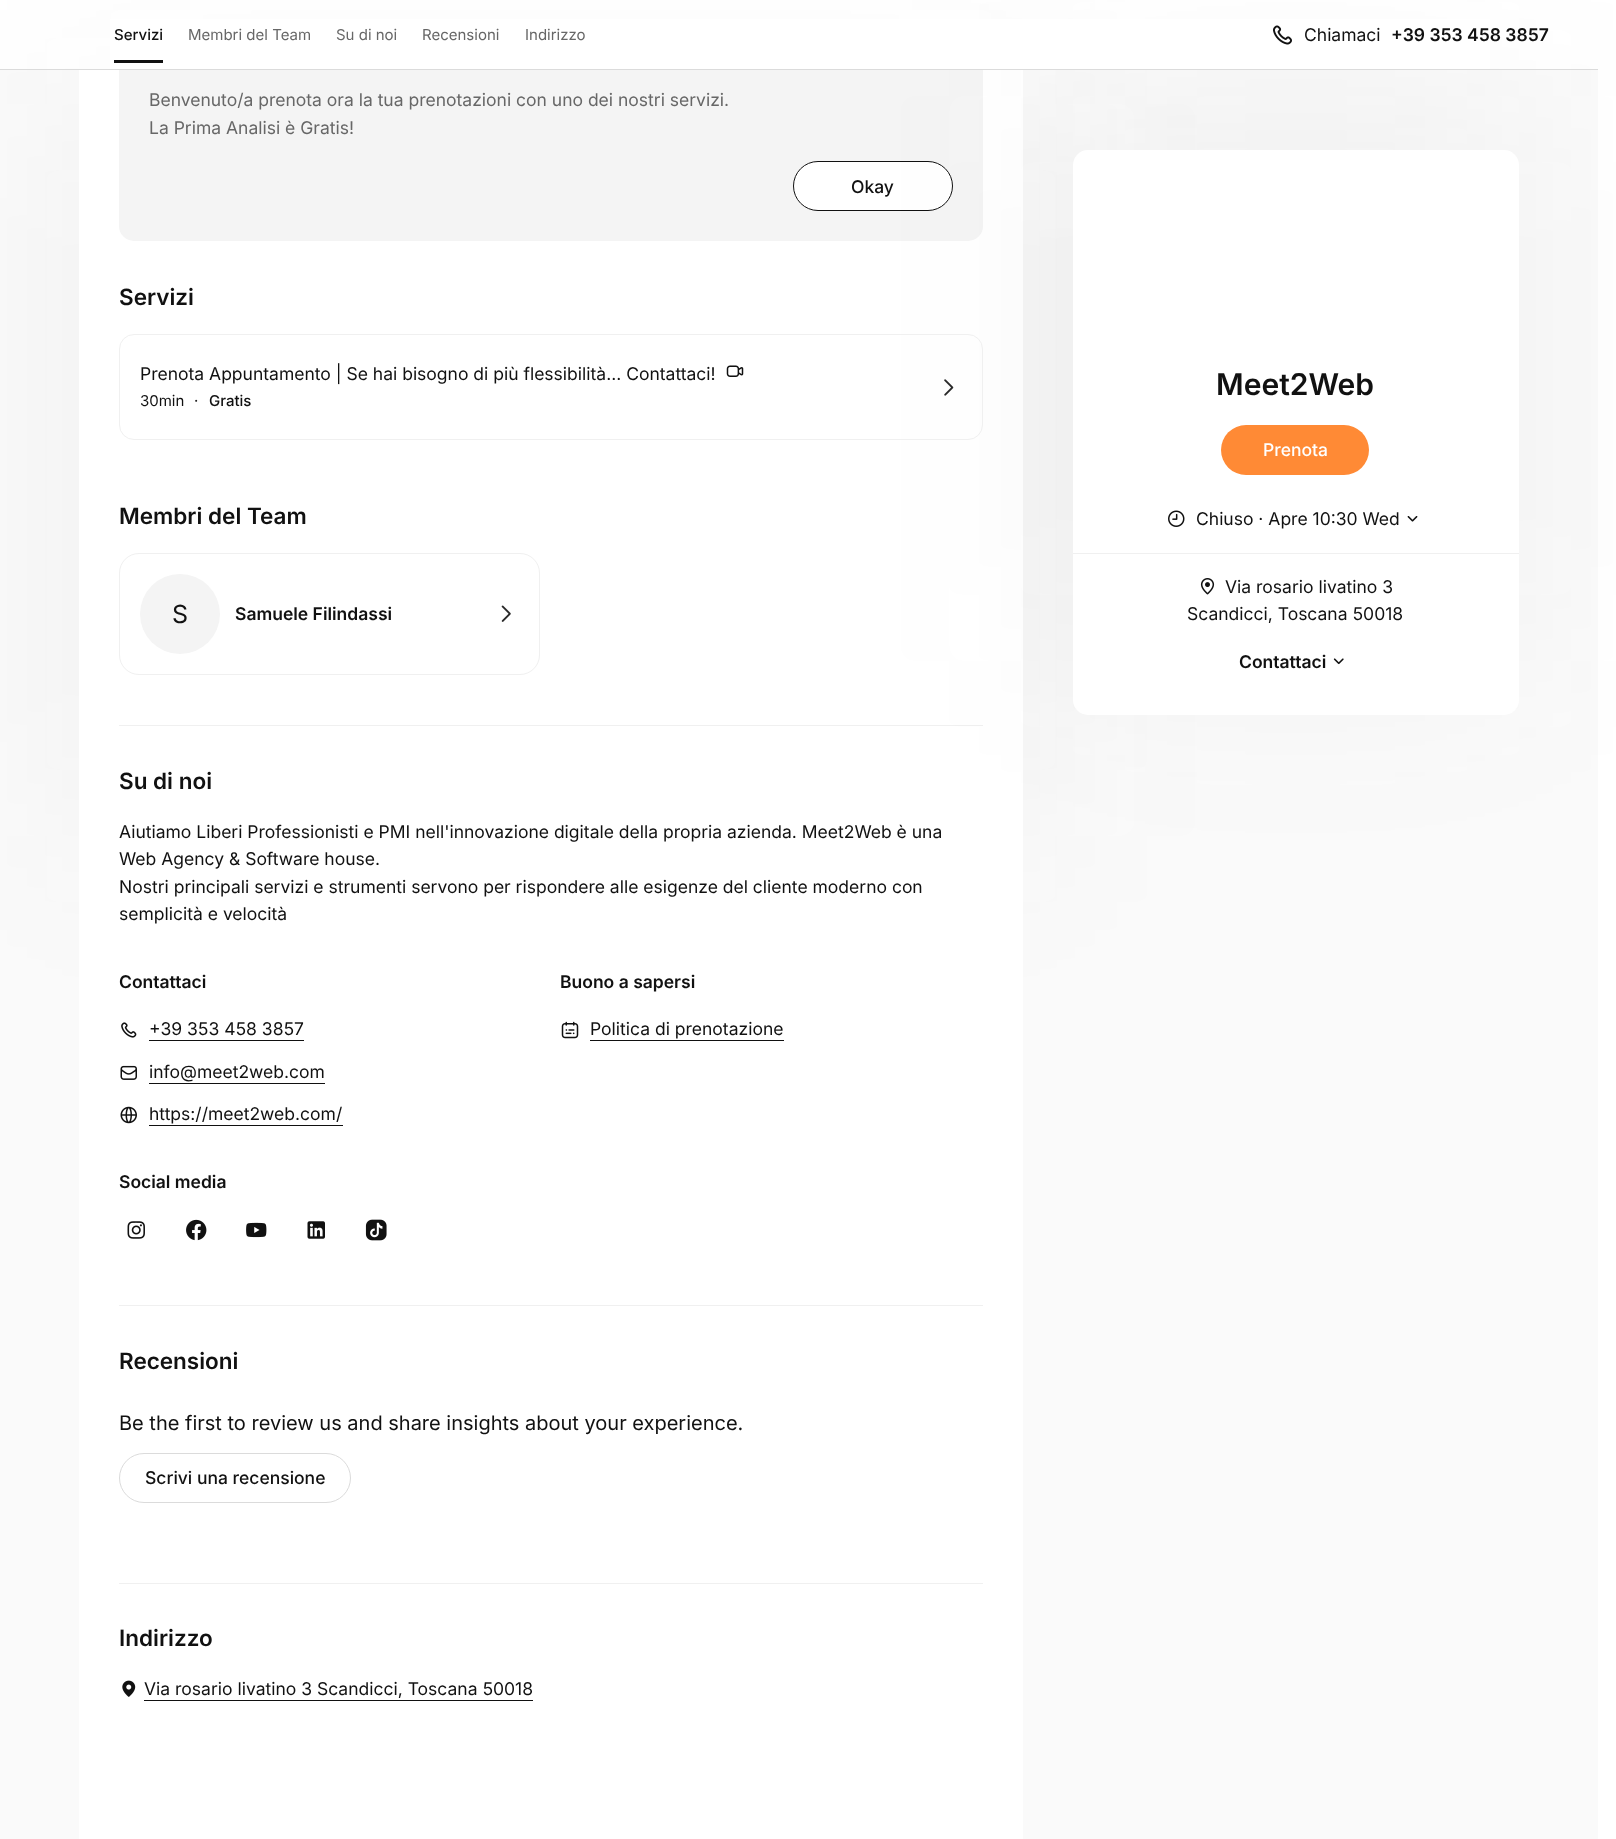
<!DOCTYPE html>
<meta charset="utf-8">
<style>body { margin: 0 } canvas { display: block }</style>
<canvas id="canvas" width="1616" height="1839"></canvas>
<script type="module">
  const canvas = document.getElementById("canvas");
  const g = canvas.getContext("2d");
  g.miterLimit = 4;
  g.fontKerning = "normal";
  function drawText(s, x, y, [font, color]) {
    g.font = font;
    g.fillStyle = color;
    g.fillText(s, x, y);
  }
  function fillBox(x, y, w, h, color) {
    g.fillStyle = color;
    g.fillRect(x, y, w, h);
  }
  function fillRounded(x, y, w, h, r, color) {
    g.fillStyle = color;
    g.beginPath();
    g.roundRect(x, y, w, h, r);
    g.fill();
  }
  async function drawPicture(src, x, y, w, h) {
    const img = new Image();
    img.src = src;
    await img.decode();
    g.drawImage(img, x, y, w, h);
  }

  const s1 = ["500 15px Inter", "#111111"];
  const s2 = ["15px Inter", "#676767"];
  const s3 = ["17.5px Inter", "#111111"];
  const s4 = ["600 17.5px Inter", "#111111"];
  const s5 = ["17.5px Inter", "#676767"];
  const s6 = ["500 17.5px Inter", "#111111"];
  const s7 = ["600 22.5px Inter", "#111111"];
  const s8 = ["15px Inter", "#111111"];
  const s9 = ["25px Inter", "#111111"];
  const s10 = ["20px Inter", "#111111"];
  const s11 = ["600 30px Inter", "#111111"];
  const s12 = ["500 17.5px Inter", "#FFFFFF"];

  fillBox(0, 0, 1616, 1839, "#FFFFFF");
  fillBox(0, 70, 1598, 1769, "#FAFAFA");
  g.fillStyle = "rgba(63, 68, 71, 0.06)";
  g.filter = "blur(100px)";
  g.beginPath();
  g.roundRect(79, 104, 944, 732, 15);
  g.fill();
  g.filter = "none";
  fillBox(79, 70, 944, 1769, "#FFFFFF");
  fillRounded(119, 19, 864, 222, 15, "#F4F4F4");
  g.fillStyle = "#FFFFFF";
  g.beginPath();
  g.roundRect(793.5, 161.5, 159, 49, 24.5);
  g.fill();
  g.strokeStyle = "#111111";
  g.stroke();
  fillBox(119, 725, 864, 1, "#F0F0F0");
  g.fillStyle = "rgba(77, 82, 86, 0.06)";
  g.filter = "blur(100px)";
  g.beginPath();
  g.roundRect(1073, 96, 446, 565, 15);
  g.fill();
  g.filter = "none";
  fillBox(110, 19, 1380, 50, "#FFFFFF");
  fillBox(0, 69, 1598, 1, "#DBDBDB");
  drawText("Servizi", 114, 40, s1);
  fillBox(114, 60, 49, 3, "#111111");
  drawText("Membri del Team", 188, 40, s2);
  drawText("Su di noi", 336, 40, s2);
  drawText("Recensioni", 422, 40, s2);
  drawText("Indirizzo", 525, 40, s2);
  await drawPicture("pic1.png", 1273, 25, 19, 20);
  drawText("Chiamaci", 1304, 41, s3);
  drawText("+39 353 458 3857", 1391, 41, s4);
  drawText("Benvenuto/a prenota ora la tua prenotazioni con uno dei nostri servizi.", 149, 106, s5);
  drawText("La Prima Analisi è Gratis!", 149, 134, s5);
  drawText("Okay", 851, 193, s6);
  drawText("Servizi", 119, 305, s7);
  g.beginPath();
  g.roundRect(119.5, 334.5, 863, 105, 14.5);
  g.strokeStyle = "#F0F0F0";
  g.stroke();
  drawText("Prenota Appuntamento | Se hai bisogno di più flessibilità... Contattaci!", 140, 380, s3);
  await drawPicture("pic2.png", 726, 365, 18, 12);
  drawText("30min", 140, 406, s8);
  drawText("·", 194, 406, s8);
  drawText("Gratis", 209, 406, s1);
  await drawPicture("pic3.png", 944, 379, 10, 17);
  drawText("Membri del Team", 119, 524, s7);
  g.beginPath();
  g.roundRect(119.5, 553.5, 420, 121, 19.5);
  g.stroke();
  g.fillStyle = "#F4F4F4";
  g.beginPath();
  g.arc(180, 614, 40, 0, Math.PI * 2);
  g.fill();
  drawText("S", 172, 623, s9);
  drawText("Samuele Filindassi", 235, 620, s4);
  await drawPicture("pic4.png", 501, 605, 10, 17);
  drawText("Su di noi", 119, 789, s7);
  drawText("Aiutiamo Liberi Professionisti e PMI nell'innovazione digitale della propria azienda. Meet2Web è una", 119, 838, s3);
  drawText("Web Agency & Software house.", 119, 865, s3);
  drawText("Nostri principali servizi e strumenti servono per rispondere alle esigenze del cliente moderno con", 119, 893, s3);
  drawText("semplicità e velocità", 119, 920, s3);
  drawText("Contattaci", 119, 988, s4);
  await drawPicture("pic5.png", 121, 1022, 16, 16);
  drawText("+39 353 458 3857", 149, 1035, s3);
  fillBox(149, 1040, 155, 1, "#111111");
  await drawPicture("pic6.png", 120, 1065, 17, 15);
  drawText("info@meet2web.com", 149, 1078, s3);
  fillBox(149, 1083, 176, 1, "#111111");
  await drawPicture("pic7.png", 120, 1106, 17, 18);
  drawText("https://meet2web.com/", 149, 1120, s3);
  fillBox(149, 1125, 194, 1, "#111111");
  drawText("Buono a sapersi", 560, 988, s4);
  await drawPicture("pic8.png", 561, 1021, 18, 18);
  drawText("Politica di prenotazione", 590, 1035, s3);
  fillBox(590, 1040, 194, 1, "#111111");
  drawText("Social media", 119, 1188, s4);
  await drawPicture("pic9.png", 127, 1221, 18, 18);
  await drawPicture("pic10.png", 186, 1219, 21, 22);
  await drawPicture("pic11.png", 246, 1222, 21, 16);
  await drawPicture("pic12.png", 307, 1221, 18, 18);
  await drawPicture("pic13.png", 365, 1219, 22, 22);
  fillBox(119, 1305, 864, 1, "#F0F0F0");
  drawText("Recensioni", 119, 1369, s7);
  drawText("Be the first to review us and share insights about your experience.", 119, 1430, s10);
  g.beginPath();
  g.roundRect(119.5, 1453.5, 231, 49, 24.5);
  g.strokeStyle = "#DBDBDB";
  g.stroke();
  drawText("Scrivi una recensione", 145, 1484, s6);
  fillBox(119, 1583, 864, 1, "#F0F0F0");
  drawText("Indirizzo", 119, 1646, s7);
  await drawPicture("pic14.png", 122, 1680, 14, 17);
  drawText("Via rosario livatino 3 Scandicci, Toscana 50018", 144, 1695, s3);
  fillBox(144, 1700, 389, 1, "#111111");
  fillRounded(1073, 150, 446, 565, 15, "#FFFFFF");
  drawText("Meet2Web", 1216, 395, s11);
  fillRounded(1221, 425, 148, 50, 25, "#FF8A35");
  drawText("Prenota", 1263, 456, s12);
  await drawPicture("pic15.png", 1168, 510, 17, 17);
  drawText("Chiuso · Apre 10:30 Wed", 1196, 525, s3);
  await drawPicture("pic16.png", 1407, 516, 11, 6);
  fillBox(1073, 553, 446, 1, "#F0F0F0");
  await drawPicture("pic17.png", 1200, 578, 15, 17);
  drawText("Via rosario livatino 3", 1225, 593, s3);
  drawText("Scandicci, Toscana 50018", 1187, 620, s3);
  drawText("Contattaci", 1239, 668, s4);
  await drawPicture("pic18.png", 1333, 658, 11, 7);
</script>
